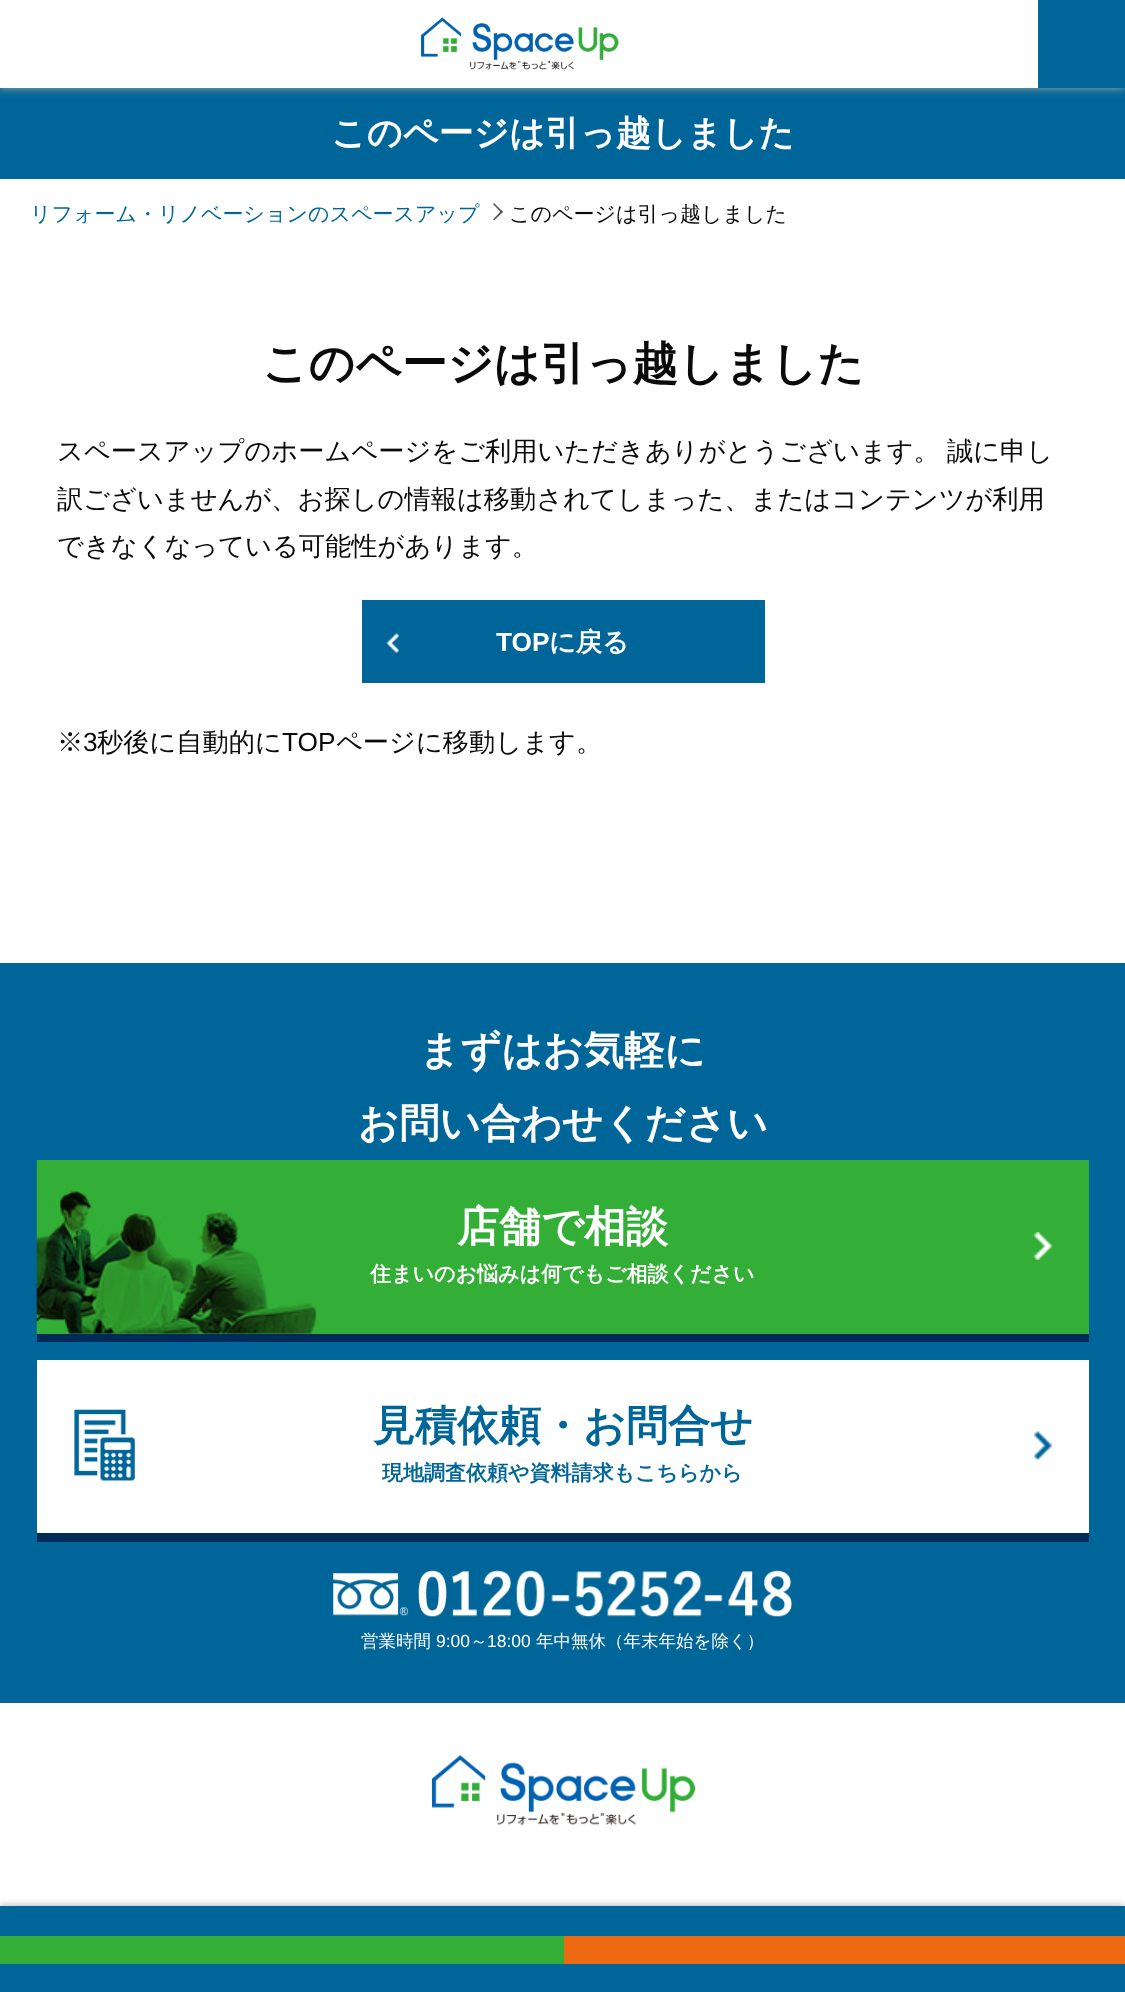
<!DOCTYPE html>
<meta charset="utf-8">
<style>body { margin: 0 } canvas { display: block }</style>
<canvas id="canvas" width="1125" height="1992"></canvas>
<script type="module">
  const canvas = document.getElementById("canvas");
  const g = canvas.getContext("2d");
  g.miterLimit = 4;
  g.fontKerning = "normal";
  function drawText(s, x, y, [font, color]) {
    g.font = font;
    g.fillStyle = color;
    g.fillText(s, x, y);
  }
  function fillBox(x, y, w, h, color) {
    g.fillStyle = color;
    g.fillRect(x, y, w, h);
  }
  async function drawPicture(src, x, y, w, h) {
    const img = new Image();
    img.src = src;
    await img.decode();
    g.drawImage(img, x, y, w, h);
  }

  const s1 = ["bold 35px WenQuanYi Zen Hei", "#FFFFFF"];
  const s2 = ["500 21px WenQuanYi Zen Hei", "#006699"];
  const s3 = ["500 21px WenQuanYi Zen Hei", "#0A0A0A"];
  const s4 = ["bold 45.5px WenQuanYi Zen Hei", "#0A0A0A"];
  const s5 = ["500 26.25px WenQuanYi Zen Hei", "#0A0A0A"];
  const s6 = ["bold 26.25px Liberation Sans", "#FFFFFF"];
  const s7 = ["bold 26.25px WenQuanYi Zen Hei", "#FFFFFF"];
  const s8 = ["26.25px Liberation Sans", "#0A0A0A"];
  const s9 = ["bold 40.25px WenQuanYi Zen Hei", "#FFFFFF"];
  const s10 = ["bold 42px WenQuanYi Zen Hei", "#FFFFFF"];
  const s11 = ["bold 21px WenQuanYi Zen Hei", "#FFFFFF"];
  const s12 = ["bold 42px WenQuanYi Zen Hei", "#006699"];
  const s13 = ["bold 21px WenQuanYi Zen Hei", "#006699"];
  const s14 = ["500 17.5px WenQuanYi Zen Hei", "#FFFFFF"];
  const s15 = ["17.5px Liberation Sans", "#FFFFFF"];

  fillBox(0, 0, 1125, 1992, "#FFFFFF");
  fillBox(0, 88, 1125, 91, "#006699");
  g.fillStyle = "#A9A9A9";
  g.filter = "blur(4.5px)";
  g.beginPath();
  g.rect(0, 0, 1125, 88);
  g.fill();
  g.filter = "none";
  fillBox(0, 0, 1038, 88, "#FFFFFF");
  await drawPicture("pic1.png", 421, 17, 198, 53);
  fillBox(1038, 0, 87, 88, "#006699");
  drawText("このページは引っ越しました", 331, 145, s1);
  drawText("リフォーム・リノベーションのスペースアップ", 30, 221, s2);
  g.fillStyle = "#555555";
  g.beginPath();
  g.moveTo(494, 203);
  g.lineTo(503, 212);
  g.lineTo(501.5, 213);
  g.lineTo(493, 204);
  g.closePath();
  g.fill();
  g.beginPath();
  g.moveTo(501.5, 210.5);
  g.lineTo(503, 212);
  g.lineTo(494, 220.5);
  g.lineTo(493, 219.5);
  g.closePath();
  g.fill();
  drawText("このページは引っ越しました", 509, 221, s3);
  drawText("このページは引っ越しました", 262, 379, s4);
  drawText("スペースアップのホームページをご利用いただきありがとうございます。", 57, 460, s5);
  drawText("誠に申し", 947, 460, s5);
  drawText("訳ございませんが、お探しの情報は移動されてしまった、またはコンテンツが利用", 57, 508, s5);
  drawText("できなくなっている可能性があります。", 57, 555, s5);
  fillBox(362, 600, 403, 83, "#006699");
  await drawPicture("pic2.png", 386, 633, 13, 20);
  drawText("TOP", 496, 651, s6);
  drawText("に戻る", 549, 651, s7);
  drawText("※", 57, 751, s5);
  drawText("3", 83, 751, s8);
  drawText("秒後に自動的に", 97, 751, s5);
  drawText("TOP", 282, 751, s8);
  drawText("ページに移動します。", 336, 751, s5);
  fillBox(0, 963, 1125, 740, "#006699");
  drawText("まずはお気軽に", 419, 1064, s9);
  drawText("お問い合わせください", 358, 1137, s9);
  fillBox(37, 1160, 1052, 174, "#33AF37");
  await drawPicture("pic3.png", 36, 1160, 287, 174);
  drawText("店舗で相談", 457, 1241, s10);
  await drawPicture("pic4.png", 1033, 1232, 20, 28);
  drawText("住まいのお悩みは何でもご相談ください", 370, 1281, s11);
  fillBox(37, 1334, 1052, 8, "#002A57");
  fillBox(37, 1360, 1052, 173, "#FFFFFF");
  await drawPicture("pic5.png", 74, 1409, 61, 72);
  drawText("見積依頼・お問合せ", 373, 1440, s12);
  await drawPicture("pic6.png", 1033, 1431, 20, 29);
  drawText("現地調査依頼や資料請求もこちらから", 382, 1480, s13);
  fillBox(37, 1533, 1052, 9, "#002A57");
  await drawPicture("pic7.png", 333, 1570, 460, 47);
  drawText("営業時間", 361, 1647, s14);
  drawText("9:00", 436, 1647, s15);
  drawText("～", 470, 1647, s14);
  drawText("18:00", 487, 1647, s15);
  drawText("年中無休（年末年始を除く）", 536, 1647, s14);
  await drawPicture("pic8.png", 431, 1755, 265, 71);
  g.fillStyle = "#A9A9A9";
  g.filter = "blur(4.5px)";
  g.beginPath();
  g.rect(0, 1906, 1125, 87);
  g.fill();
  g.filter = "none";
  fillBox(0, 1906, 1125, 86, "#006699");
  fillBox(0, 1936, 564, 28, "#33AF37");
  fillBox(564, 1936, 561, 28, "#EE6A12");
</script>
